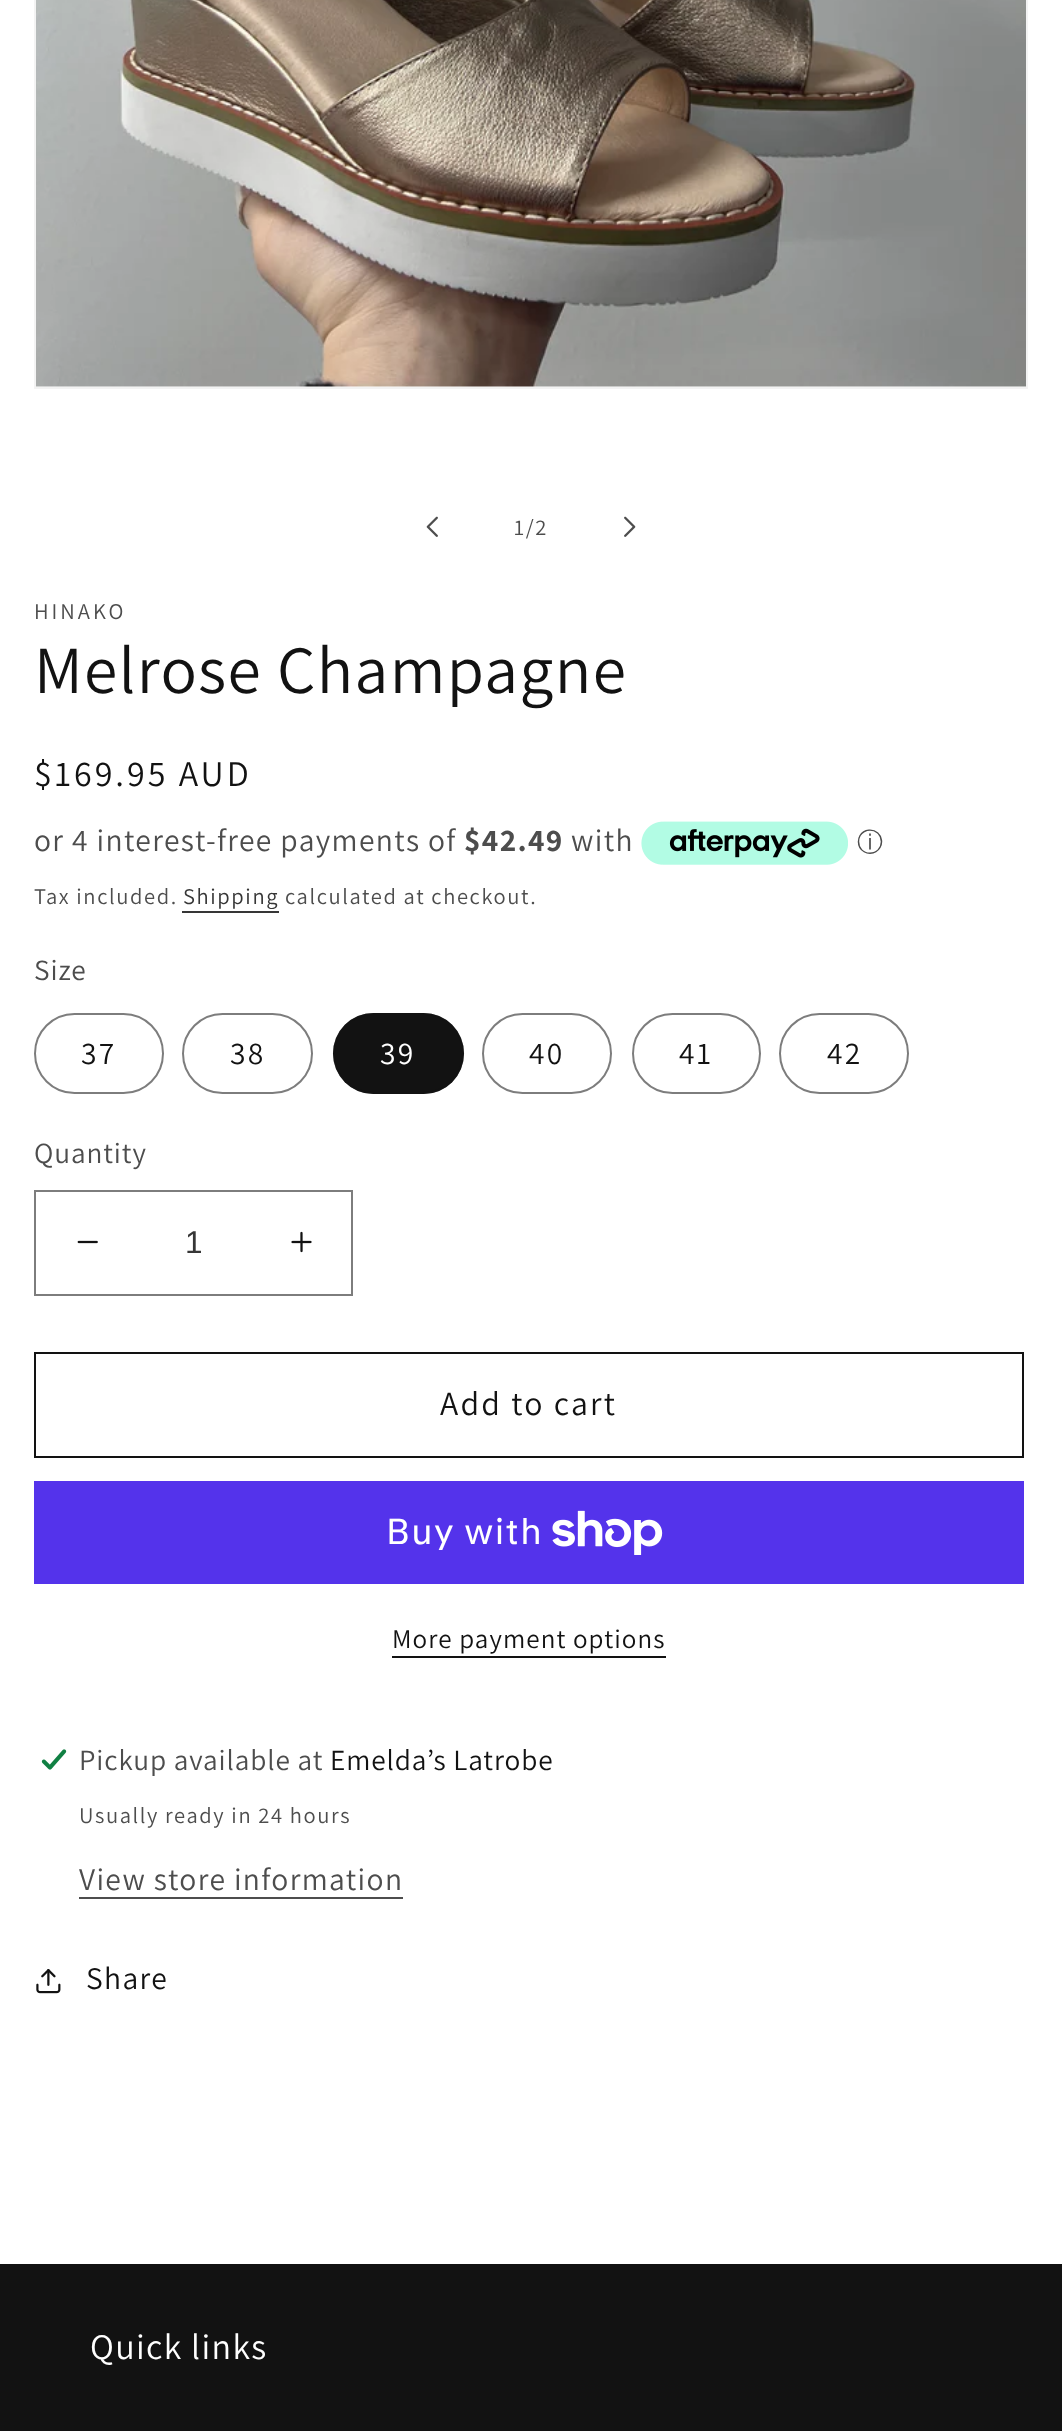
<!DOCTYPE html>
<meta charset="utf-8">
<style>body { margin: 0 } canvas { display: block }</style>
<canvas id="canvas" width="1062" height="2431"></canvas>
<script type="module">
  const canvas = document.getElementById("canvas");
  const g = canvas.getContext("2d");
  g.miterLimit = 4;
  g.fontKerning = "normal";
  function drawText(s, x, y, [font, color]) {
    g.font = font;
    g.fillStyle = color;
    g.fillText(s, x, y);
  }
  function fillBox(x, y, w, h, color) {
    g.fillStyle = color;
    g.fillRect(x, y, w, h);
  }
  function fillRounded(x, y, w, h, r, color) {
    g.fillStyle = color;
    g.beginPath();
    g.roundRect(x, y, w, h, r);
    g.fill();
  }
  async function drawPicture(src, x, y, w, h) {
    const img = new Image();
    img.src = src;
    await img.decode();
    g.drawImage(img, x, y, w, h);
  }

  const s1 = ["22.5px Assistant", "#4D4D4D"];
  const s2 = ["67.5px Assistant", "#121212"];
  const s3 = ["36px Assistant", "#121212"];
  const s4 = ["31.5px Assistant", "#4D4D4D"];
  const s5 = ["bold 31.5px Assistant", "#4D4D4D"];
  const s6 = ["500 26px WenQuanYi Zen Hei", "#4D4D4D"];
  const s7 = ["22.5px Assistant", "#363636"];
  const s8 = ["29.25px Assistant", "#4D4D4D"];
  const s9 = ["31.5px Assistant", "#121212"];
  const s10 = ["31.5px Assistant", "#FFFFFF"];
  const s11 = ["31.5px Liberation Sans", "#363636"];
  const s12 = ["33.75px Assistant", "#121212"];
  const s13 = ["36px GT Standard", "#FFFFFF"];
  const s14 = ["27px Assistant", "#121212"];
  const s15 = ["29.25px Assistant", "#121212"];
  const s16 = ["36px Assistant", "#FFFFFF"];

  fillBox(0, 0, 1062, 2431, "#FFFFFF");
  g.strokeStyle = "#F3F3F3";
  g.lineWidth = 2;
  g.strokeRect(35, -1, 992, 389);
  await drawPicture("pic1.png", 36, 0, 990, 387);
  await drawPicture("pic2.png", 426, 516, 12, 21);
  g.letterSpacing = "1.6px";
  drawText("1/2", 514, 535, s1);
  await drawPicture("pic3.png", 624, 516, 12, 21);
  g.letterSpacing = "3px";
  drawText("HINAKO", 34, 619, s1);
  g.letterSpacing = "1.35px";
  drawText("Melrose Champagne", 34, 693, s2);
  g.letterSpacing = "3px";
  drawText("$169.95 AUD", 34, 786, s3);
  g.letterSpacing = "1.35px";
  drawText("or 4 interest-free payments of", 34, 851, s4);
  drawText("$42.49", 464, 851, s5);
  drawText("with", 571, 851, s4);
  await drawPicture("pic4.png", 641, 821, 207, 44);
  g.letterSpacing = "0px";
  drawText("ⓘ", 857, 851, s6);
  g.letterSpacing = "1.6px";
  drawText("Tax included.", 34, 904, s1);
  drawText("Shipping", 183, 904, s7);
  fillBox(182, 911, 97, 2, "#363636");
  drawText("calculated at checkout.", 285, 904, s1);
  g.letterSpacing = "0.9px";
  drawText("Size", 34, 980, s8);
  g.beginPath();
  g.roundRect(35, 1014, 128, 79, 39.5);
  g.strokeStyle = "#7D7D7D";
  g.stroke();
  g.letterSpacing = "2.25px";
  drawText("37", 81, 1064, s9);
  g.beginPath();
  g.roundRect(183, 1014, 129, 79, 39.5);
  g.stroke();
  drawText("38", 230, 1064, s9);
  fillRounded(333, 1013, 131, 81, 40.5, "#121212");
  g.beginPath();
  g.roundRect(334, 1014, 129, 79, 39.5);
  g.strokeStyle = "rgba(18, 18, 18, 0.55)";
  g.stroke();
  drawText("39", 380, 1064, s10);
  g.beginPath();
  g.roundRect(483, 1014, 128, 79, 39.5);
  g.strokeStyle = "#7D7D7D";
  g.stroke();
  drawText("40", 529, 1064, s9);
  g.beginPath();
  g.roundRect(633, 1014, 127, 79, 39.5);
  g.stroke();
  drawText("41", 679, 1064, s9);
  g.beginPath();
  g.roundRect(780, 1014, 128, 79, 39.5);
  g.stroke();
  drawText("42", 827, 1064, s9);
  g.letterSpacing = "0.9px";
  drawText("Quantity", 34, 1163, s8);
  await drawPicture("pic5.png", 77, 1240, 21, 4);
  await drawPicture("pic6.png", 291, 1231, 21, 22);
  g.strokeRect(35, 1191, 317, 104);
  g.letterSpacing = "0px";
  drawText("1", 185, 1253, s11);
  g.strokeStyle = "#121212";
  g.strokeRect(35, 1353, 988, 104);
  g.letterSpacing = "2.25px";
  drawText("Add to cart", 440, 1415, s12);
  fillBox(34, 1481, 990, 103, "#5433EB");
  g.letterSpacing = "1.35px";
  drawText("Buy with", 386, 1544, s13);
  await drawPicture("pic7.png", 552, 1510, 111, 45);
  g.letterSpacing = "1.1px";
  drawText("More payment options", 392, 1648, s14);
  fillBox(392, 1656, 274, 2, "#121212");
  await drawPicture("pic8.png", 41, 1749, 26, 21);
  g.letterSpacing = "0.9px";
  drawText("Pickup available at", 79, 1770, s8);
  drawText("Emelda’s Latrobe", 330, 1770, s15);
  g.letterSpacing = "1.6px";
  drawText("Usually ready in 24 hours", 79, 1823, s1);
  g.letterSpacing = "1.35px";
  drawText("View store information", 79, 1890, s4);
  fillBox(79, 1897, 324, 2, "#4D4D4D");
  await drawPicture("pic9.png", 36, 1969, 25, 25);
  drawText("Share", 86, 1989, s9);
  fillBox(0, 2264, 1062, 167, "#121212");
  drawText("Quick links", 90, 2359, s16);
</script>
